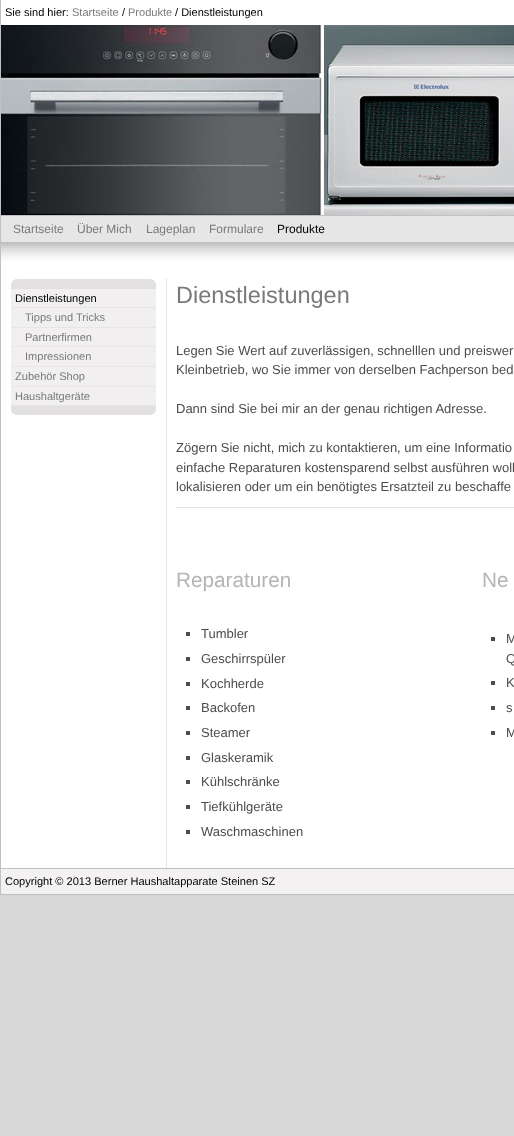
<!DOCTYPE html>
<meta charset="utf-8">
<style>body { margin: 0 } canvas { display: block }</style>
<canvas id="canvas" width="514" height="1136"></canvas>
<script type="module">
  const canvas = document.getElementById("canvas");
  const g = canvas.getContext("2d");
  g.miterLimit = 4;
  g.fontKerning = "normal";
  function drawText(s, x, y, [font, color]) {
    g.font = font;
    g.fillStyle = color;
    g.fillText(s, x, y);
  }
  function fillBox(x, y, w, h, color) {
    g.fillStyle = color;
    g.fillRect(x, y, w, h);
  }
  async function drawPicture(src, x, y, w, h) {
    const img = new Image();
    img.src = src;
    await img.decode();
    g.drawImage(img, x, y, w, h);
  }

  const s1 = ["11.05px Liberation Sans", "#000000"];
  const s2 = ["11.05px Liberation Sans", "#7A7A7A"];
  const s3 = ["12px Liberation Sans", "#7A7A7A"];
  const s4 = ["12px Liberation Sans", "#000000"];
  const s5 = ["23.5px Liberation Sans", "#7A7A7A"];
  const s6 = ["13px Liberation Sans", "#4C4C4C"];
  const s7 = ["20.75px Liberation Sans", "#B5B5B5"];

  fillBox(0, 0, 514, 1136, "#D8D7D7");
  fillBox(1, 278, 513, 590, "#FFFFFF");
  fillBox(166, 278, 1, 590, "#E7E6E6");
  fillBox(0, 894, 514, 1, "#C1C1C1");
  fillBox(0, 0, 1, 895, "#C1C1C1");
  fillBox(1, 0, 513, 25, "#FFFFFF");
  drawText("Sie sind hier:", 5, 16, s1);
  drawText("Startseite", 72, 16, s2);
  drawText("/", 122, 16, s1);
  drawText("Produkte", 128, 16, s2);
  drawText("/ Dienstleistungen", 175, 16, s1);
  fillBox(1, 215, 513, 1, "#C1C1C1");
  await drawPicture("pic1.png", 1, 25, 513, 190);
  fillBox(1, 216, 513, 26, "#E6E6E6");
  fillBox(1, 242, 513, 1, "#C1C1C1");
  drawText("Startseite", 13, 233, s3);
  drawText("Über Mich", 77, 233, s3);
  drawText("Lageplan", 146, 233, s3);
  drawText("Formulare", 209, 233, s3);
  drawText("Produkte", 277, 233, s4);
  await drawPicture("pic2.png", 1, 243, 513, 35);
  await drawPicture("pic3.png", 11, 406, 145, 9);
  await drawPicture("pic4.png", 11, 279, 145, 10);
  fillBox(11, 289, 145, 18, "#F1EFEF");
  fillBox(11, 307, 145, 1, "#E6E6E6");
  drawText("Dienstleistungen", 15, 302, s1);
  fillBox(11, 308, 145, 58, "#F1EFEF");
  fillBox(11, 327, 145, 1, "#E6E6E6");
  drawText("Tipps und Tricks", 25, 321, s2);
  fillBox(11, 346, 145, 1, "#E6E6E6");
  drawText("Partnerfirmen", 25, 341, s2);
  fillBox(11, 366, 145, 1, "#E6E6E6");
  drawText("Impressionen", 25, 360, s2);
  fillBox(11, 367, 145, 19, "#F1EFEF");
  fillBox(11, 386, 145, 1, "#E6E6E6");
  drawText("Zubehör Shop", 15, 380, s2);
  fillBox(11, 387, 145, 18, "#F1EFEF");
  fillBox(11, 405, 145, 1, "#E6E6E6");
  drawText("Haushaltgeräte", 15, 400, s2);
  drawText("Dienstleistungen", 176, 303, s5);
  drawText("Legen Sie Wert auf zuverlässigen, schnelllen und preiswer", 176, 355, s6);
  drawText("Kleinbetrieb, wo Sie immer von derselben Fachperson bed", 176, 374, s6);
  drawText("Dann sind Sie bei mir an der genau richtigen Adresse.", 176, 413, s6);
  drawText("Zögern Sie nicht, mich zu kontaktieren, um eine Informatio", 176, 452, s6);
  drawText("einfache Reparaturen kostensparend selbst ausführen woll", 176, 472, s6);
  drawText("lokalisieren oder um ein benötigtes Ersatzteil zu beschaffe", 176, 491, s6);
  fillBox(176, 507, 338, 1, "#E6E6E6");
  drawText("Reparaturen", 176, 587, s7);
  fillBox(186, 632, 4, 4, "#4C4C4C");
  drawText("Tumbler", 201, 638, s6);
  fillBox(186, 657, 4, 4, "#4C4C4C");
  drawText("Geschirrspüler", 201, 663, s6);
  fillBox(186, 682, 4, 4, "#4C4C4C");
  drawText("Kochherde", 201, 688, s6);
  fillBox(186, 706, 4, 4, "#4C4C4C");
  drawText("Backofen", 201, 712, s6);
  fillBox(186, 731, 4, 4, "#4C4C4C");
  drawText("Steamer", 201, 737, s6);
  fillBox(186, 756, 4, 4, "#4C4C4C");
  drawText("Glaskeramik", 201, 762, s6);
  fillBox(186, 780, 4, 4, "#4C4C4C");
  drawText("Kühlschränke", 201, 786, s6);
  fillBox(186, 805, 4, 4, "#4C4C4C");
  drawText("Tiefkühlgeräte", 201, 811, s6);
  fillBox(186, 830, 4, 4, "#4C4C4C");
  drawText("Waschmaschinen", 201, 836, s6);
  drawText("Ne", 482, 587, s7);
  fillBox(491, 637, 4, 4, "#4C4C4C");
  drawText("M", 506, 643, s6);
  drawText("Q", 506, 663, s6);
  fillBox(491, 681, 4, 4, "#4C4C4C");
  drawText("K", 506, 687, s6);
  fillBox(491, 706, 4, 4, "#4C4C4C");
  drawText("s", 506, 712, s6);
  fillBox(491, 731, 4, 4, "#4C4C4C");
  drawText("M", 506, 737, s6);
  fillBox(1, 869, 513, 25, "#F3F1F1");
  fillBox(1, 868, 513, 1, "#C1C1C1");
  drawText("Copyright © 2013 Berner Haushaltapparate Steinen SZ", 5, 885, s1);
</script>
